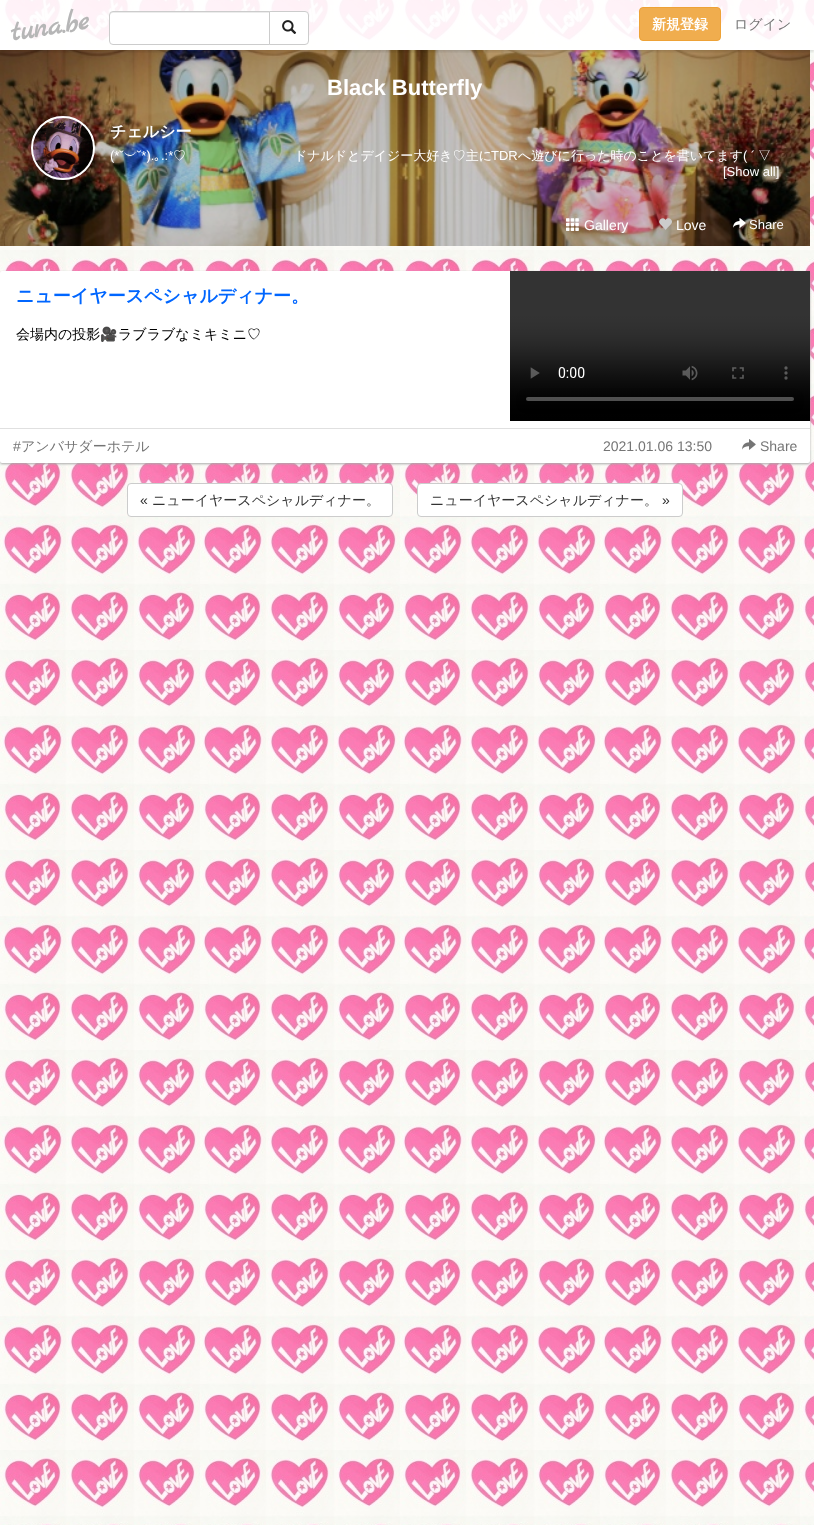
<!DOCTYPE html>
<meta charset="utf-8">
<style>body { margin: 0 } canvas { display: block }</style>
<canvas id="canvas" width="814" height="1525"></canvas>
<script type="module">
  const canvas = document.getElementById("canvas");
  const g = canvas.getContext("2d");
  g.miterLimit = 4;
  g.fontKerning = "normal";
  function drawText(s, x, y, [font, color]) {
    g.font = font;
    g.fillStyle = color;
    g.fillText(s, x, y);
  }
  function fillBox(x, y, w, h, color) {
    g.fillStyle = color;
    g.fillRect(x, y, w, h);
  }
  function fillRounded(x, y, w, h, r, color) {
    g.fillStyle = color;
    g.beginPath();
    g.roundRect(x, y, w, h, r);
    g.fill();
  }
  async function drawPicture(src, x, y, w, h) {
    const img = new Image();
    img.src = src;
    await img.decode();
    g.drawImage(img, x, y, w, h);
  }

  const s1 = ["bold 14px WenQuanYi Zen Hei", "#FFFFFF"];
  const s2 = ["500 14px WenQuanYi Zen Hei", "#757575"];
  const s3 = ["bold 22px Liberation Sans", "#FFFFFF"];
  const s4 = ["bold 16px WenQuanYi Zen Hei", "#FFFFFF"];
  const s5 = ["13px Liberation Sans", "#FFFFFF"];
  const s6 = ["500 13px WenQuanYi Zen Hei", "#FFFFFF"];
  const s7 = ["13px IPAPGothic", "#FFFFFF"];
  const s8 = ["14px Liberation Sans", "#FFFFFF"];
  const s9 = ["bold 18px WenQuanYi Zen Hei", "#0066FF"];
  const s10 = ["500 14px WenQuanYi Zen Hei", "#000000"];
  const s11 = ["14px Noto Color Emoji", "#000000"];
  const s12 = ["14px Liberation Sans", "#757575"];
  const s13 = ["14px Liberation Sans", "#333333"];
  const s14 = ["500 14px WenQuanYi Zen Hei", "#333333"];

  fillBox(0, 0, 814, 1525, "#FFFFFF");
  await drawPicture("pic1.png", 0, 0, 814, 1525);
  await drawPicture("pic3.png", 0, 50, 810, 196);
  g.save();
  g.beginPath();
  g.rect(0, 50, 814, 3);
  g.clip();
  g.fillStyle = "rgba(0, 0, 0, 0.1)";
  g.filter = "blur(1px)";
  g.beginPath();
  g.rect(0, 2, 814, 50);
  g.fill();
  g.filter = "none";
  g.restore();
  fillBox(0, 0, 814, 50, "rgba(255, 255, 255, 0.9)");
  g.save();
  g.beginPath();
  g.moveTo(6.5, 7.5);
  g.lineTo(85, -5);
  g.lineTo(93, 44.5);
  g.lineTo(14.5, 57);
  g.closePath();
  g.clip();
  g.font = "bold 30px Marck Script";
  g.fillStyle = "#B6B6B6";
  g.save();
  g.translate(12, 41);
  g.rotate(-9 * Math.PI / 180);
  g.fillText("tuna.be", 0, 0);
  g.restore();
  g.restore();
  g.fillStyle = "#FFFFFF";
  g.beginPath();
  g.roundRect(109, 11, 161, 34, [4, 0, 0, 4]);
  g.fill();
  g.fillStyle = "#ECECEC";
  g.beginPath();
  g.moveTo(113, 13);
  g.lineTo(269, 13);
  g.lineTo(269, 12);
  g.lineTo(112, 12);
  g.bezierCurveTo(110, 12, 110, 14, 110, 16);
  g.bezierCurveTo(110, 14, 111, 13, 113, 13);
  g.closePath();
  g.fill();
  g.beginPath();
  g.roundRect(109.5, 11.5, 160, 33, [3.5, 0, 0, 3.5]);
  g.strokeStyle = "#CCCCCC";
  g.stroke();
  g.fillStyle = "#FFFFFF";
  g.beginPath();
  g.roundRect(269.5, 11.5, 39, 33, [0, 3.5, 3.5, 0]);
  g.fill();
  g.stroke();
  await drawPicture("pic2.png", 282, 20, 15, 14);
  g.fillStyle = "#F0AD4E";
  g.beginPath();
  g.roundRect(639.5, 7.5, 81, 33, 3.5);
  g.fill();
  g.strokeStyle = "#EEA236";
  g.stroke();
  drawText("新規登録", 652, 29, s1);
  drawText("ログイン", 734, 29, s2);
  drawText("Black Butterfly", 327, 95, s3);
  await drawPicture("pic4.png", 33, 116, 60, 64);
  g.beginPath();
  g.arc(63, 148, 31, 0, Math.PI * 2);
  g.strokeStyle = "#FFFFFF";
  g.lineWidth = 2;
  g.stroke();
  drawText("チェルシー", 110, 137, s4);
  drawText("(*˘", 110, 160, s5);
  drawText("︶", 124, 160, s6);
  drawText("˘*).", 137, 160, s5);
  drawText(".:*", 161, 160, s5);
  drawText("♡ 　　　　　　　　ドナルドとデイジー大好き♡主に", 173, 160, s6);
  drawText("TDR", 491, 160, s5);
  drawText("へ遊びに行った時のことを書いてます", 518, 160, s6);
  drawText("( ´", 743, 160, s5);
  drawText("▽", 758, 160, s6);
  drawText("｡", 154, 160, s7);
  drawText("[Show all]", 723, 176, s5);
  await drawPicture("pic5.png", 566, 218, 13, 13);
  drawText("Gallery", 584, 230, s8);
  await drawPicture("pic6.png", 659, 218, 13, 12);
  drawText("Love", 676, 230, s8);
  await drawPicture("pic7.png", 733, 218, 13, 10);
  drawText("Share", 749, 229, s5);
  g.fillStyle = "#AAAAAA";
  g.filter = "blur(1px)";
  g.beginPath();
  g.roundRect(0, 272, 810, 192, 2);
  g.fill();
  g.filter = "none";
  fillRounded(0, 271, 810, 192, 2, "#FFFFFF");
  drawText("ニューイヤースペシャルディナー。", 16, 302, s9);
  await drawPicture("pic8.png", 510, 271, 300, 150);
  drawText("会場内の投影", 16, 339, s10);
  drawText("🎥", 100, 339, s11);
  drawText("ラブラブなミキミニ♡", 118, 339, s10);
  fillBox(0, 428, 810, 1, "#E0E0E0");
  drawText("#", 13, 451, s12);
  drawText("アンバサダーホテル", 21, 451, s2);
  drawText("2021.01.06 13:50", 603, 451, s12);
  await drawPicture("pic9.png", 742, 439, 14, 11);
  drawText("Share", 760, 451, s12);
  g.fillStyle = "#FFFFFF";
  g.beginPath();
  g.roundRect(127.5, 483.5, 265, 33, 3.5);
  g.fill();
  g.strokeStyle = "#CCCCCC";
  g.lineWidth = 1;
  g.stroke();
  drawText("«", 140, 505, s13);
  drawText("ニューイヤースペシャルディナー。", 152, 505, s14);
  g.fillStyle = "#FFFFFF";
  g.beginPath();
  g.roundRect(417.5, 483.5, 265, 33, 3.5);
  g.fill();
  g.stroke();
  drawText("ニューイヤースペシャルディナー。", 430, 505, s14);
  drawText("»", 662, 505, s13);
</script>
